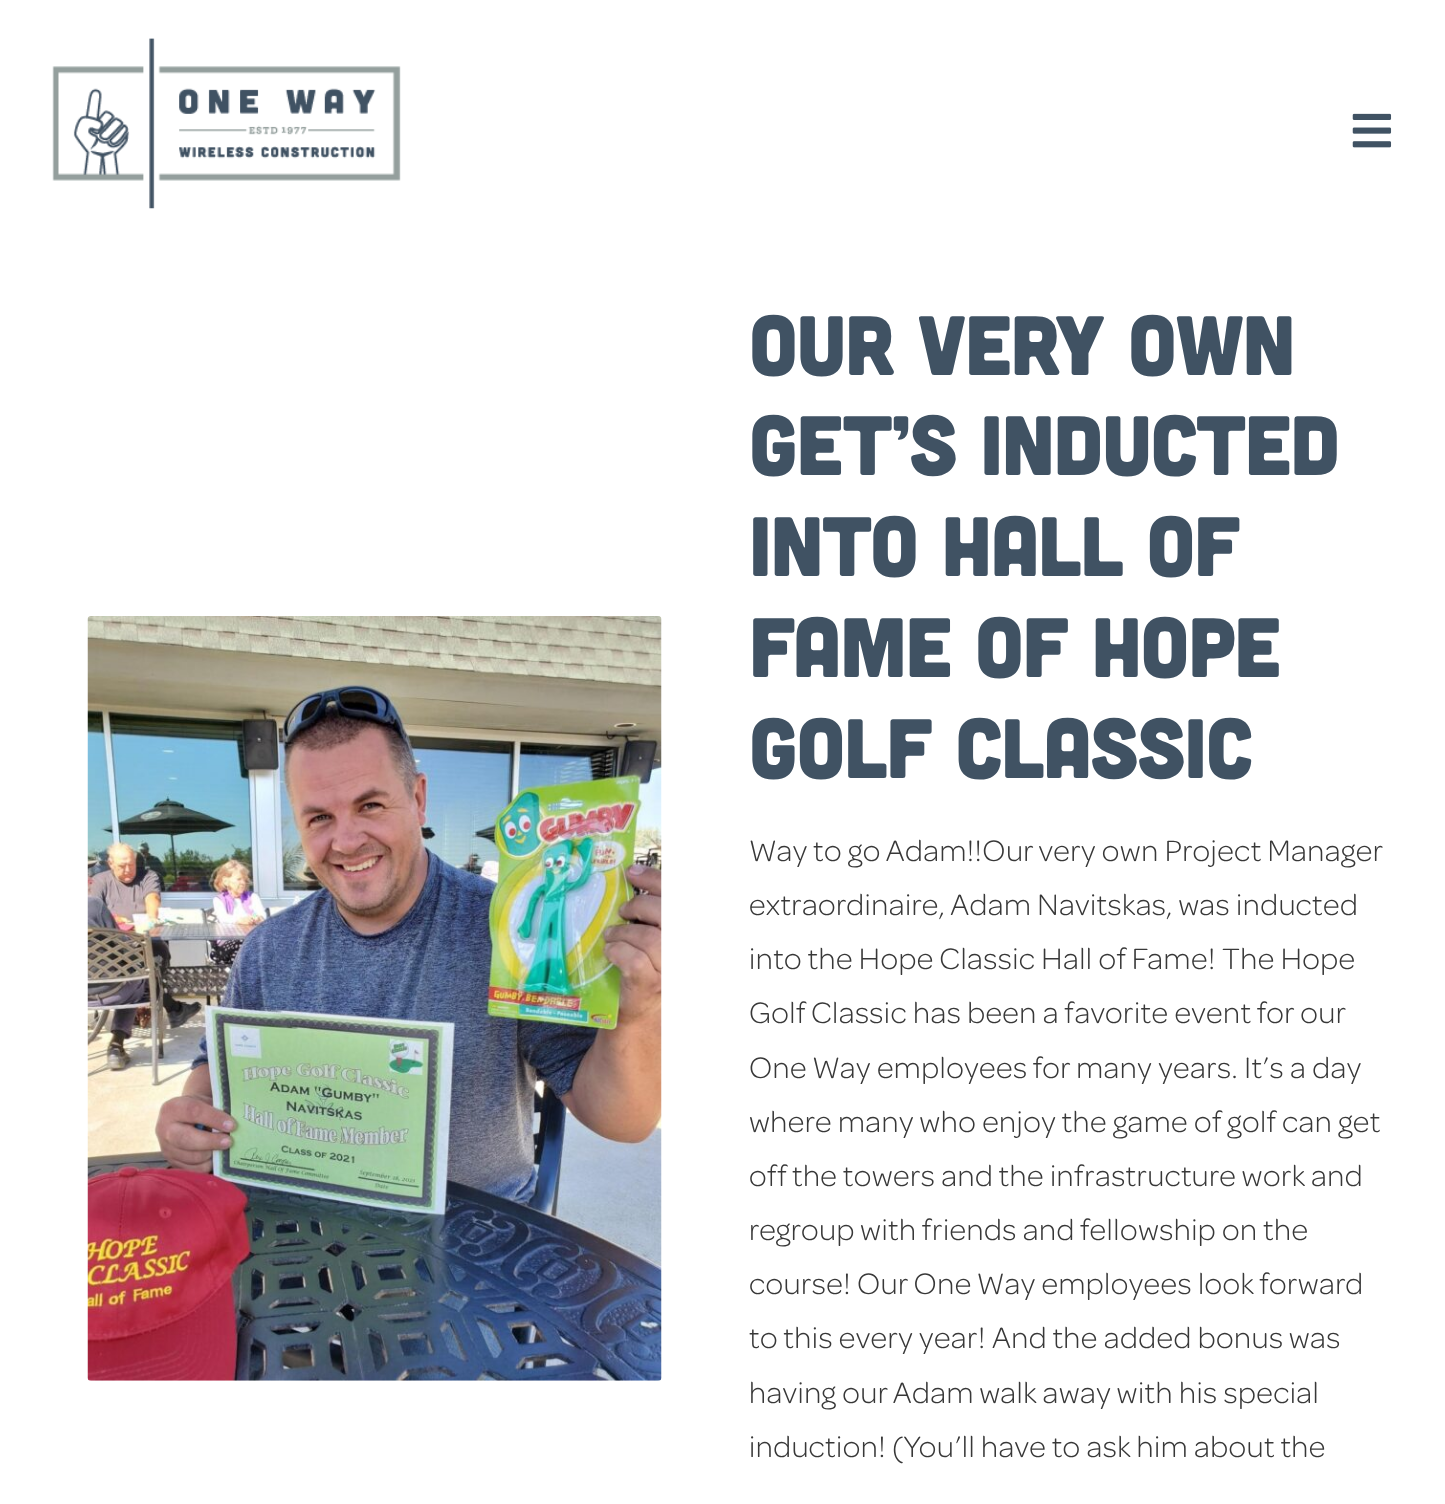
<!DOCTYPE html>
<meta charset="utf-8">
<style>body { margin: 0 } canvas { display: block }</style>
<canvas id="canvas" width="1445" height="1504"></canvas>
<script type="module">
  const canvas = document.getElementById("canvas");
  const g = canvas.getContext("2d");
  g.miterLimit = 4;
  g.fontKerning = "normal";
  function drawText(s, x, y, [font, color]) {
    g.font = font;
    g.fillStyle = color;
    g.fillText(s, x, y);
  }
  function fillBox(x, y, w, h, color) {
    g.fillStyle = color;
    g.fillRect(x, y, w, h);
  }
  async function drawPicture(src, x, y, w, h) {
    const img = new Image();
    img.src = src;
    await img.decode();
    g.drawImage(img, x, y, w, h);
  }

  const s1 = ["84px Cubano", "#405263"];
  const s2 = ["300 31.5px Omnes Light", "#383838"];

  fillBox(0, 0, 1445, 1504, "#FFFFFF");
  await drawPicture("pic1.png", 52, 38, 349, 171);
  await drawPicture("pic2.png", 1352, 113, 40, 35);
  await drawPicture("pic3.png", 87, 616, 575, 765);
  g.letterSpacing = "-1.25px";
  drawText("Our Very Own", 749, 375, s1);
  drawText("Get’s Inducted", 749, 475, s1);
  drawText("into Hall of", 749, 576, s1);
  drawText("Fame of Hope", 749, 677, s1);
  drawText("Golf Classic", 749, 778, s1);
  g.letterSpacing = "0.45px";
  drawText("Way to go Adam!!Our very own Project Manager", 749, 861, s2);
  drawText("extraordinaire, Adam Navitskas, was inducted", 749, 915, s2);
  drawText("into the Hope Classic Hall of Fame!", 749, 969, s2);
  drawText("The Hope", 1222, 969, s2);
  drawText("Golf Classic has been a favorite event for our", 749, 1023, s2);
  drawText("One Way employees for many years. It’s a day", 749, 1078, s2);
  drawText("where many who enjoy the game of golf can get", 749, 1132, s2);
  drawText("off the towers and the infrastructure work and", 749, 1186, s2);
  drawText("regroup with friends and fellowship on the", 749, 1240, s2);
  drawText("course!", 749, 1294, s2);
  drawText("Our One Way employees look forward", 857, 1294, s2);
  drawText("to this every year!", 749, 1348, s2);
  drawText("And the added bonus was", 992, 1348, s2);
  drawText("having our Adam walk away with his special", 749, 1403, s2);
  drawText("induction! (You’ll have to ask him about the", 749, 1457, s2);
</script>
